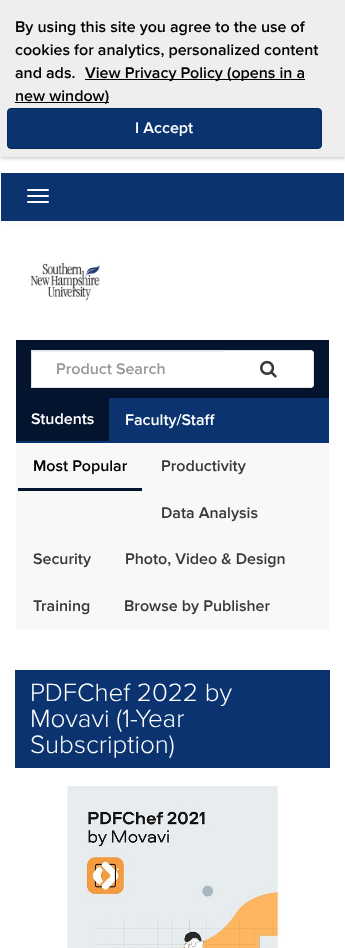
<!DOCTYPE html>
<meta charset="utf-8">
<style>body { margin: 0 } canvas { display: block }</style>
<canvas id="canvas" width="345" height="948"></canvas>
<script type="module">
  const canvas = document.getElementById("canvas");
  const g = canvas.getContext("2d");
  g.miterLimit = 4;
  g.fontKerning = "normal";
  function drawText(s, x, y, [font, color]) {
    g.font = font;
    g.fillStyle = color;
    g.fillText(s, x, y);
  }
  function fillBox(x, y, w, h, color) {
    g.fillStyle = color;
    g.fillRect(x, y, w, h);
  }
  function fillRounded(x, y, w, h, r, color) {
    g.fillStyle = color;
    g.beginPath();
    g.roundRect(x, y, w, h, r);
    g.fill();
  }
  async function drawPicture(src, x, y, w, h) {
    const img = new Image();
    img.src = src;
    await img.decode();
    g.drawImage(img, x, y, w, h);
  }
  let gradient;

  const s1 = ["600 16px Proxima Nova", "#000000"];
  const s2 = ["600 16px Proxima Nova", "#FFFFFF"];
  const s3 = ["600 16px Proxima Nova", "#999999"];
  const s4 = ["600 16px Proxima Nova", "#393939"];
  const s5 = ["300 26px Proxima Nova", "#FFFFFF"];

  fillBox(0, 0, 345, 948, "#FFFFFF");
  g.fillStyle = "rgba(0, 0, 0, 0.25)";
  g.filter = "blur(2px)";
  g.beginPath();
  g.rect(0, 1, 345, 157);
  g.fill();
  g.filter = "none";
  fillBox(0, 0, 345, 157, "#EEEEEE");
  drawText("By using this site you agree to the use of", 15, 32, s1);
  drawText("cookies for analytics, personalized content", 15, 55, s1);
  drawText("and ads.", 15, 78, s1);
  fillBox(85, 79, 220, 1, "#000000");
  drawText("View Privacy Policy (opens in a", 85, 78, s1);
  fillBox(15, 102, 94, 1, "#000000");
  drawText("new window)", 15, 101, s1);
  g.fillStyle = "#0A3370";
  g.beginPath();
  g.roundRect(7.5, 108.5, 314, 40, 3.5);
  g.fill();
  g.strokeStyle = "#082859";
  g.stroke();
  drawText("I Accept", 135, 133, s2);
  fillBox(1, 173, 343, 48, "#0A3370");
  fillRounded(27, 189, 22, 2, 1, "#FCFCFC");
  fillRounded(27, 195, 22, 2, 1, "#FCFCFC");
  fillRounded(27, 201, 22, 2, 1, "#FCFCFC");
  gradient = g.createLinearGradient(173, 221, 173, 253);
  gradient.addColorStop(0, "#FCFCFC");
  gradient.addColorStop(1, "#FFFFFF");
  g.fillStyle = gradient;
  g.fillRect(1, 221, 343, 5);
  await drawPicture("pic1.png", 31, 262, 69, 39);
  fillBox(16, 340, 313, 58, "#05142E");
  fillBox(32, 352, 192, 35, "#FFFFFF");
  fillBox(32, 351, 192, 1, "#ECECEC");
  fillBox(31, 350, 193, 1, "#E4E4E4");
  fillBox(31, 387, 193, 1, "#E4E4E4");
  fillBox(31, 350, 1, 38, "#E4E4E4");
  drawText("Product Search", 56, 374, s3);
  g.fillStyle = "#FFFFFF";
  g.beginPath();
  g.roundRect(224, 350, 90, 38, [0, 4, 4, 0]);
  g.fill();
  g.fillStyle = "#E4E4E4";
  g.beginPath();
  g.moveTo(224, 350);
  g.lineTo(310, 350);
  g.bezierCurveTo(312, 350, 314, 352, 314, 354);
  g.lineTo(314, 384);
  g.bezierCurveTo(314, 386, 312, 388, 310, 388);
  g.lineTo(224, 388);
  g.closePath();
  g.moveTo(224, 351);
  g.lineTo(310, 351);
  g.bezierCurveTo(312, 351, 313, 352, 313, 354);
  g.lineTo(313, 384);
  g.bezierCurveTo(313, 386, 312, 387, 310, 387);
  g.lineTo(224, 387);
  g.closePath();
  g.fill("evenodd");
  fillBox(312, 352, 1, 34, "#FFFFFF");
  await drawPicture("pic2.png", 260, 360, 17, 18);
  fillBox(16, 398, 313, 45, "#0A3370");
  fillBox(16, 398, 93, 43, "#05142E");
  drawText("Students", 31, 424, s2);
  drawText("Faculty/Staff", 125, 425, s2);
  fillBox(16, 443, 313, 187, "#F8F8F8");
  fillBox(18, 488, 124, 3, "#05142E");
  drawText("Most Popular", 33, 471, s1);
  drawText("Productivity", 161, 471, s4);
  drawText("Data Analysis", 161, 518, s4);
  drawText("Security", 33, 564, s4);
  drawText("Photo, Video & Design", 125, 564, s4);
  drawText("Training", 33, 611, s4);
  drawText("Browse by Publisher", 124, 611, s4);
  fillBox(15, 670, 315, 98, "#0A3370");
  drawText("PDFChef 2022 by", 30, 701, s5);
  drawText("Movavi (1-Year", 30, 727, s5);
  drawText("Subscription)", 30, 753, s5);
  await drawPicture("pic3.png", 67, 786, 216, 162);
</script>
